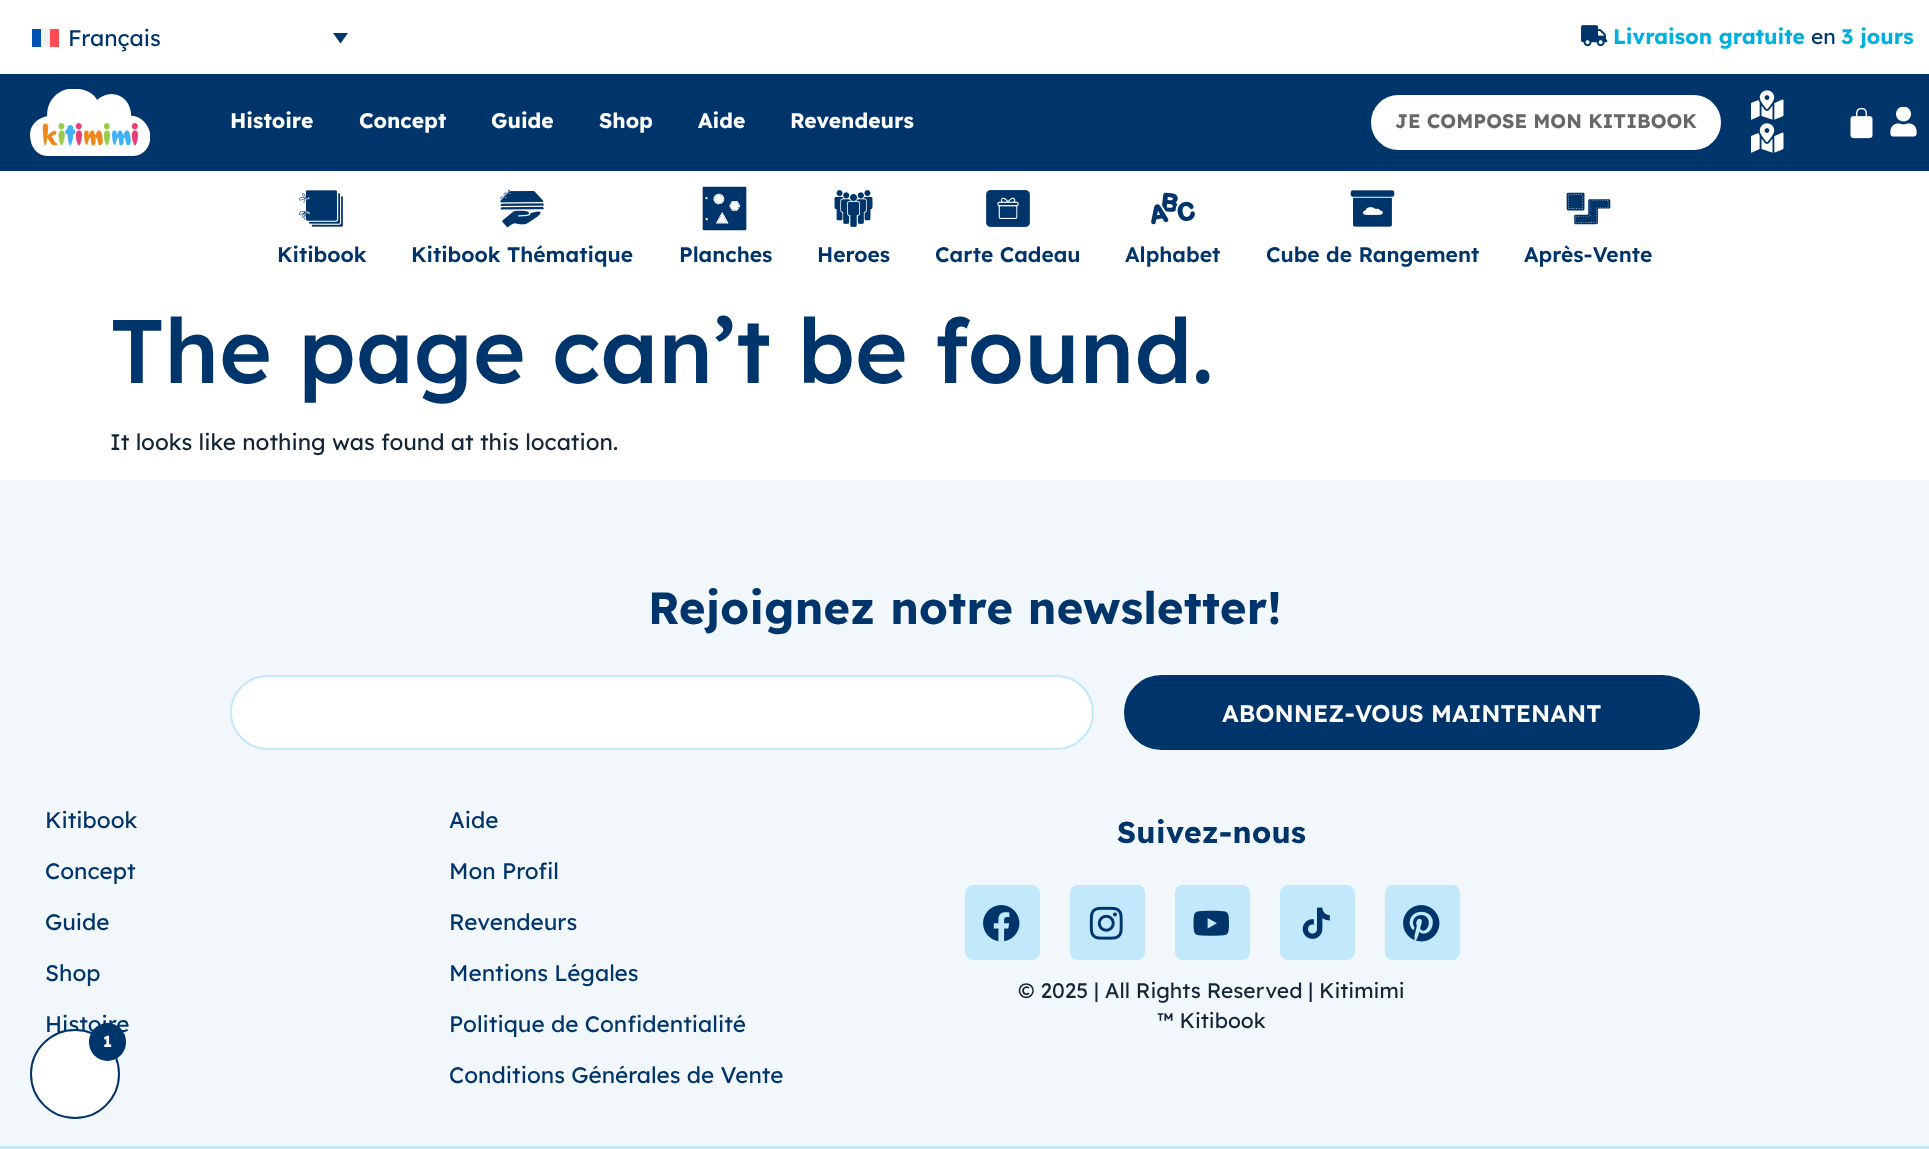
<!DOCTYPE html>
<meta charset="utf-8">
<style>body { margin: 0 } canvas { display: block }</style>
<canvas id="canvas" width="1929" height="1149"></canvas>
<script type="module">
  const canvas = document.getElementById("canvas");
  const g = canvas.getContext("2d");
  g.miterLimit = 4;
  g.fontKerning = "normal";
  function drawText(s, x, y, [font, color]) {
    g.font = font;
    g.fillStyle = color;
    g.fillText(s, x, y);
  }
  function fillBox(x, y, w, h, color) {
    g.fillStyle = color;
    g.fillRect(x, y, w, h);
  }
  function fillRounded(x, y, w, h, r, color) {
    g.fillStyle = color;
    g.beginPath();
    g.roundRect(x, y, w, h, r);
    g.fill();
  }
  async function drawPicture(src, x, y, w, h) {
    const img = new Image();
    img.src = src;
    await img.decode();
    g.drawImage(img, x, y, w, h);
  }

  const s1 = ["22.5px Lexend", "#00356B"];
  const s2 = ["bold 21px Lexend", "#00B1E0"];
  const s3 = ["21px Lexend", "#00356B"];
  const s4 = ["bold 21px Lexend", "#FFFFFF"];
  const s5 = ["bold 19.5px Lexend", "#686868"];
  const s6 = ["600 21px Lexend", "#00356B"];
  const s7 = ["500 90px Lexend", "#00356B"];
  const s8 = ["22.5px Lexend", "#142535"];
  const s9 = ["bold 45px Lexend", "#00356B"];
  const s10 = ["600 24px Lexend", "#FFFFFF"];
  const s11 = ["bold 30px Lexend", "#00356B"];
  const s12 = ["21px Lexend", "#142535"];
  const s13 = ["bold 16px Lexend", "#FFFFFF"];

  fillBox(0, 0, 1929, 1149, "#FFFFFF");
  fillBox(32, 29, 9, 18, "#0052B4");
  fillBox(41, 29, 9, 18, "#F0F0F0");
  fillBox(50, 29, 9, 18, "#FF4B55");
  drawText("Français", 68, 46, s1);
  g.beginPath();
  g.moveTo(333, 33);
  g.lineTo(348, 33);
  g.lineTo(340.5, 43.5);
  g.closePath();
  g.fill();
  await drawPicture("pic1.png", 1581, 25, 27, 22);
  drawText("Livraison gratuite", 1613, 44, s2);
  drawText("en", 1811, 44, s3);
  drawText("3 jours", 1841, 44, s2);
  fillBox(0, 74, 1929, 97, "#00356B");
  await drawPicture("pic2.png", 30, 89, 120, 67);
  drawText("Histoire", 230, 128, s4);
  drawText("Concept", 359, 128, s4);
  drawText("Guide", 491, 128, s4);
  drawText("Shop", 599, 128, s4);
  drawText("Aide", 698, 128, s4);
  drawText("Revendeurs", 790, 128, s4);
  g.beginPath();
  g.roundRect(1372, 96, 348, 53, 26.5);
  g.fill();
  g.strokeStyle = "#FFFFFF";
  g.lineWidth = 2;
  g.stroke();
  drawText("JE COMPOSE MON KITIBOOK", 1395, 128, s5);
  await drawPicture("pic3.png", 1751, 90, 33, 30);
  await drawPicture("pic3.png", 1751, 123, 33, 30);
  await drawPicture("pic4.png", 1850, 107, 23, 32);
  await drawPicture("pic5.png", 1890, 107, 27, 30);
  await drawPicture("pic6.png", 299, 190, 44, 37);
  drawText("Kitibook", 277, 262, s6);
  await drawPicture("pic7.png", 500, 189, 44, 39);
  drawText("Kitibook Thématique", 411, 262, s6);
  await drawPicture("pic8.png", 702, 186, 45, 45);
  drawText("Planches", 679, 262, s6);
  await drawPicture("pic9.png", 834, 190, 39, 37);
  drawText("Heroes", 817, 262, s6);
  await drawPicture("pic10.png", 986, 190, 44, 37);
  drawText("Carte Cadeau", 935, 262, s6);
  await drawPicture("pic11.png", 1151, 192, 44, 33);
  drawText("Alphabet", 1125, 262, s6);
  await drawPicture("pic12.png", 1350, 190, 45, 37);
  drawText("Cube de Rangement", 1266, 262, s6);
  await drawPicture("pic13.png", 1566, 192, 45, 33);
  drawText("Après-Vente", 1524, 262, s6);
  drawText("The page can’t be found.", 110, 383, s7);
  drawText("It looks like nothing was found at this location.", 110, 450, s8);
  fillBox(0, 480, 1929, 666, "#F2F7FC");
  g.letterSpacing = "0.35px";
  drawText("Rejoignez notre newsletter!", 648, 624, s9);
  g.fillStyle = "#FFFFFF";
  g.beginPath();
  g.roundRect(231, 676, 862, 73, 36.5);
  g.fill();
  g.strokeStyle = "#C1E8FB";
  g.stroke();
  g.fillStyle = "#00356B";
  g.beginPath();
  g.roundRect(1125, 676, 574, 73, 36.5);
  g.fill();
  g.strokeStyle = "#00356B";
  g.stroke();
  g.letterSpacing = "0px";
  drawText("ABONNEZ-VOUS MAINTENANT", 1222, 722, s10);
  drawText("Kitibook", 45, 828, s1);
  drawText("Concept", 45, 879, s1);
  drawText("Guide", 45, 930, s1);
  drawText("Shop", 45, 981, s1);
  drawText("Histoire", 45, 1032, s1);
  drawText("Aide", 449, 828, s1);
  drawText("Mon Profil", 449, 879, s1);
  drawText("Revendeurs", 449, 930, s1);
  drawText("Mentions Légales", 449, 981, s1);
  drawText("Politique de Confidentialité", 449, 1032, s1);
  drawText("Conditions Générales de Vente", 449, 1083, s1);
  g.letterSpacing = "0.35px";
  drawText("Suivez-nous", 1117, 843, s11);
  fillRounded(965, 885, 75, 75, 8, "#C1E8FB");
  await drawPicture("pic14.png", 983, 905, 37, 37);
  fillRounded(1070, 885, 75, 75, 8, "#C1E8FB");
  await drawPicture("pic15.png", 1089, 906, 34, 34);
  fillRounded(1175, 885, 75, 75, 8, "#C1E8FB");
  await drawPicture("pic16.png", 1193, 910, 36, 26);
  fillRounded(1280, 885, 75, 75, 8, "#C1E8FB");
  await drawPicture("pic17.png", 1302, 907, 28, 32);
  fillRounded(1385, 885, 75, 75, 8, "#C1E8FB");
  await drawPicture("pic18.png", 1403, 905, 37, 37);
  g.letterSpacing = "0px";
  drawText("© 2025 | All Rights Reserved | Kitimimi", 1018, 998, s12);
  drawText("™ Kitibook", 1157, 1028, s12);
  fillBox(0, 1146, 1929, 3, "#C1E8FB");
  g.fillStyle = "#FFFFFF";
  g.beginPath();
  g.arc(75, 1074, 44, 0, Math.PI * 2);
  g.fill();
  g.stroke();
  fillRounded(89, 1023, 37, 38, 18.5, "#00356B");
  drawText("1", 103, 1047, s13);
</script>
